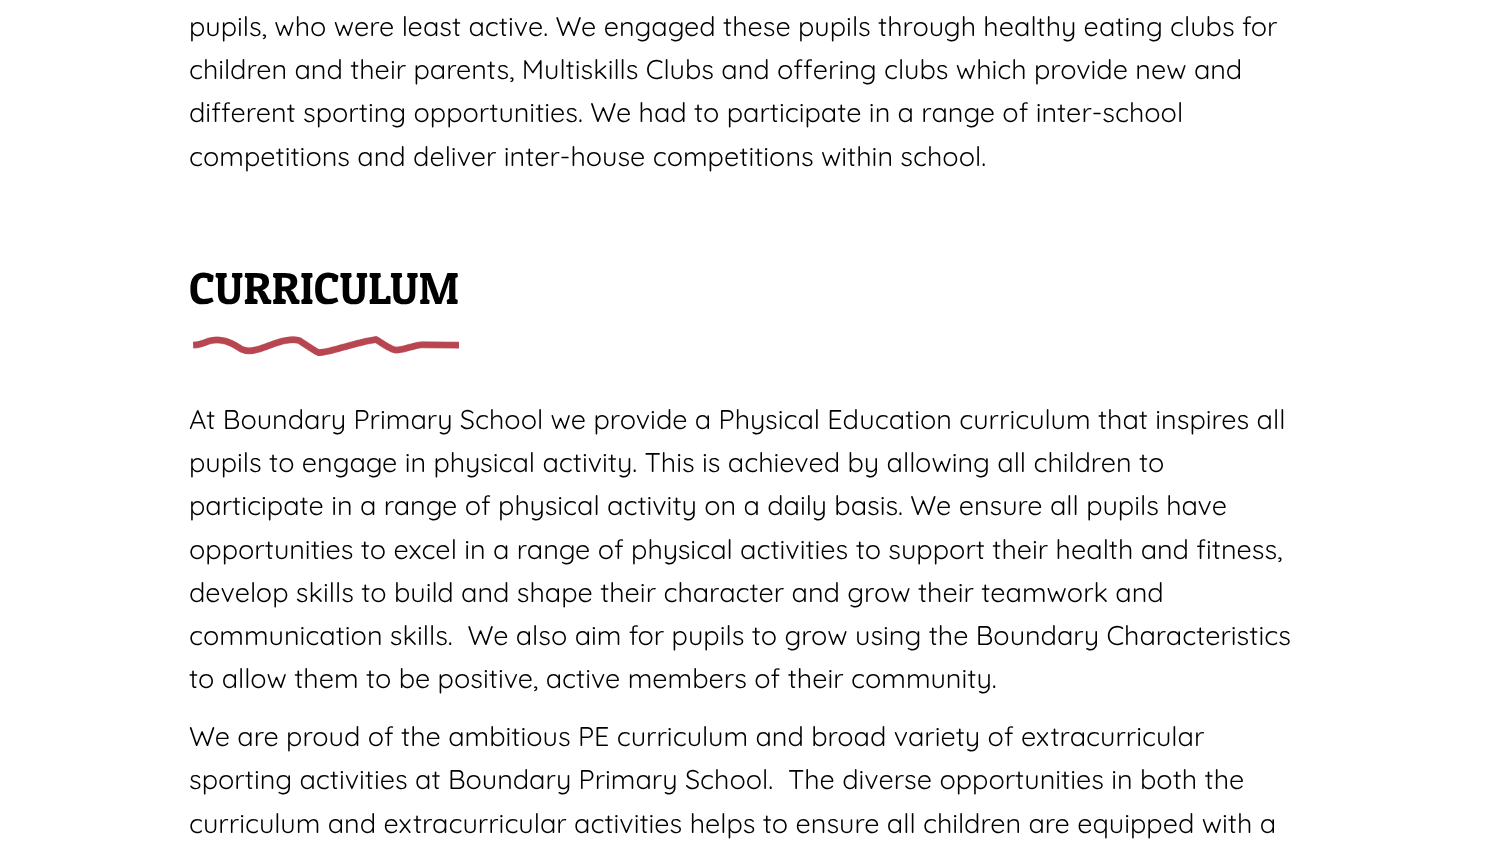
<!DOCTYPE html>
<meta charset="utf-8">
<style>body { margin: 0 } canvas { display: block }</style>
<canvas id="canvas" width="1485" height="850"></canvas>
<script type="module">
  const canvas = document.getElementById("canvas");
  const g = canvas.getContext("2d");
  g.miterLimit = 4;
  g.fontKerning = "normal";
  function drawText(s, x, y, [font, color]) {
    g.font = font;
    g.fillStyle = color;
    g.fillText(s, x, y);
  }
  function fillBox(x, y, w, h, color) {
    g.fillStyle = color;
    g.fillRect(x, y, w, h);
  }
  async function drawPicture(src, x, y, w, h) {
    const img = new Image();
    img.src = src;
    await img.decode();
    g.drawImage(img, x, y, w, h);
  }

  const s1 = ["27px Quicksand", "#000000"];
  const s2 = ["45px Patua One", "#000000"];

  fillBox(0, 0, 1485, 850, "#FFFFFF");
  drawText("pupils, who were least active. We engaged these pupils through healthy eating clubs for", 189, 36, s1);
  drawText("children and their parents, Multiskills Clubs and offering clubs which provide new and", 189, 79, s1);
  drawText("different sporting opportunities. We had to participate in a range of inter-school", 189, 122, s1);
  drawText("competitions and deliver inter-house competitions within school.", 189, 166, s1);
  drawText("CURRICULUM", 189, 304, s2);
  await drawPicture("pic1.png", 193, 336, 266, 20);
  drawText("At Boundary Primary School we provide a Physical Education curriculum that inspires all", 189, 429, s1);
  drawText("pupils to engage in physical activity. This is achieved by allowing all children to", 189, 472, s1);
  drawText("participate in a range of physical activity on a daily basis. We ensure all pupils have", 189, 515, s1);
  drawText("opportunities to excel in a range of physical activities to support their health and fitness,", 189, 559, s1);
  drawText("develop skills to build and shape their character and grow their teamwork and", 189, 602, s1);
  drawText("communication skills.  We also aim for pupils to grow using the Boundary Characteristics", 189, 645, s1);
  drawText("to allow them to be positive, active members of their community.", 189, 688, s1);
  drawText("We are proud of the ambitious PE curriculum and broad variety of extracurricular", 189, 746, s1);
  drawText("sporting activities at Boundary Primary School.  The diverse opportunities in both the", 189, 789, s1);
  drawText("curriculum and extracurricular activities helps to ensure all children are equipped with a", 189, 833, s1);
</script>
